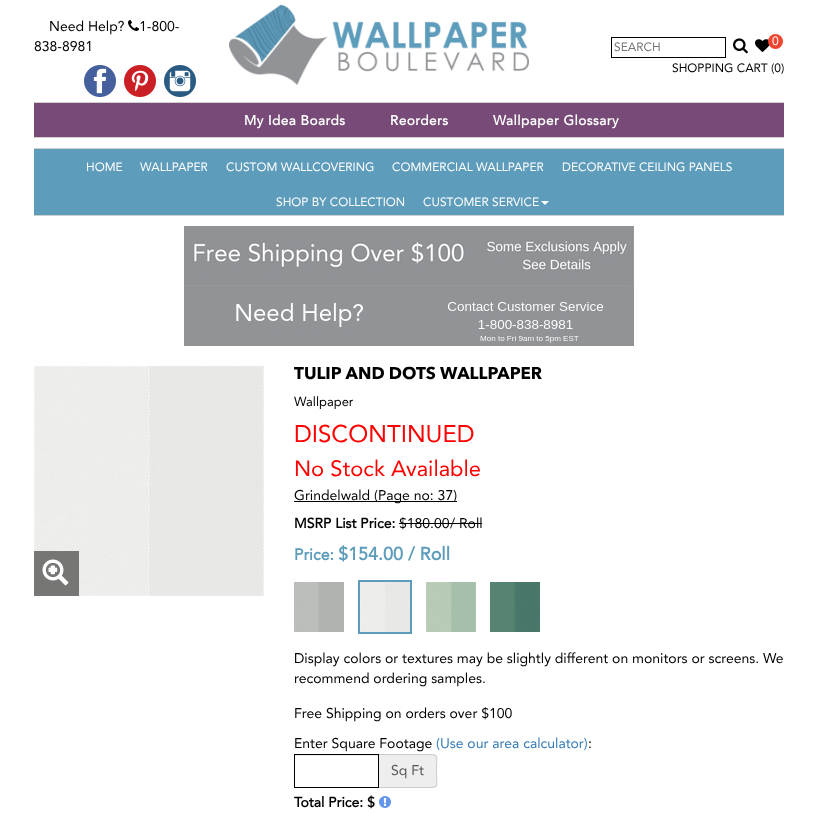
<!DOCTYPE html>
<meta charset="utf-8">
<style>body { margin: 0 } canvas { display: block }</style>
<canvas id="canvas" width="818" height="823"></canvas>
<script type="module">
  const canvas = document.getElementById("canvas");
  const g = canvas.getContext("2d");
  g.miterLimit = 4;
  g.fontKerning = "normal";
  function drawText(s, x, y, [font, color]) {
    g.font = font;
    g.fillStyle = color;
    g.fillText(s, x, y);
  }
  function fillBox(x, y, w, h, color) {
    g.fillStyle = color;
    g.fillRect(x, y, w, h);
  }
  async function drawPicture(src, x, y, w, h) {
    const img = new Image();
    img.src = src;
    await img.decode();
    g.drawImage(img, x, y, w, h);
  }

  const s1 = ["14px Avenir", "#000000"];
  const s2 = ["12px Avenir", "#FFFFFF"];
  const s3 = ["12px Avenir", "#757575"];
  const s4 = ["12px Avenir", "#000000"];
  const s5 = ["bold 13.5px Avenir", "#FFFFFF"];
  const s6 = ["bold 17px Avenir Next", "#000000"];
  const s7 = ["13px Avenir", "#000000"];
  const s8 = ["24px Avenir", "#FF0000"];
  const s9 = ["22px Avenir", "#FF0000"];
  const s10 = ["bold 14px Avenir", "#000000"];
  const s11 = ["bold 16px Avenir", "#5E9CBC"];
  const s12 = ["bold 18px Avenir", "#5E9CBC"];
  const s13 = ["14px Avenir", "#337AB7"];
  const s14 = ["14px Avenir", "#555555"];

  fillBox(0, 0, 818, 823, "#FFFFFF");
  drawText("Need Help?", 49, 31, s1);
  await drawPicture("pic1.png", 128, 20, 11, 11);
  drawText("1-800-", 139, 31, s1);
  drawText("838-8981", 34, 51, s1);
  await drawPicture("pic2.png", 84, 65, 32, 32);
  await drawPicture("pic3.png", 124, 65, 32, 32);
  await drawPicture("pic4.png", 164, 65, 32, 32);
  await drawPicture("pic5.png", 229, 5, 300, 80);
  await drawPicture("pic6.png", 755, 39, 15, 13);
  g.fillStyle = "#F0452E";
  g.beginPath();
  g.arc(775.5, 41.5, 7.5, 0, Math.PI * 2);
  g.fill();
  drawText("0", 772, 45, s2);
  g.strokeStyle = "#000000";
  g.strokeRect(611.5, 37.5, 114, 20);
  drawText("SEARCH", 614, 51, s3);
  await drawPicture("pic7.png", 733, 38, 15, 16);
  drawText("SHOPPING CART (0)", 672, 72, s4);
  fillBox(34, 103, 750, 34, "#774A77");
  fillBox(34, 102, 750, 1, "#CFCFCD");
  fillBox(34, 137, 750, 1, "#CFCFCD");
  g.letterSpacing = "0.5px";
  drawText("My Idea Boards", 244, 125, s5);
  drawText("Reorders", 390, 125, s5);
  drawText("Wallpaper Glossary", 493, 125, s5);
  fillBox(34, 149, 750, 66, "#5E9CBC");
  fillBox(34, 148, 750, 1, "#CFCFCD");
  fillBox(34, 215, 750, 1, "#CFCFCD");
  g.letterSpacing = "0px";
  drawText("HOME", 86, 171, s2);
  drawText("WALLPAPER", 140, 171, s2);
  drawText("CUSTOM WALLCOVERING", 226, 171, s2);
  drawText("COMMERCIAL WALLPAPER", 392, 171, s2);
  drawText("DECORATIVE CEILING PANELS", 562, 171, s2);
  drawText("SHOP BY COLLECTION", 276, 206, s2);
  drawText("CUSTOMER SERVICE", 423, 206, s2);
  g.beginPath();
  g.moveTo(541, 201);
  g.lineTo(549, 201);
  g.lineTo(545, 205);
  g.closePath();
  g.fill();
  await drawPicture("pic8.png", 184, 226, 450, 60);
  await drawPicture("pic9.png", 184, 286, 450, 60);
  await drawPicture("pic10.png", 34, 366, 230, 230);
  fillBox(34, 551, 45, 45, "rgba(0, 0, 0, 0.5)");
  await drawPicture("pic11.png", 42, 559, 27, 27);
  drawText("TULIP AND DOTS WALLPAPER", 294, 379, s6);
  drawText("Wallpaper", 294, 406, s7);
  drawText("DISCONTINUED", 294, 442, s8);
  drawText("No Stock Available", 294, 476, s9);
  fillBox(294, 501, 163, 1, "#000000");
  drawText("Grindelwald (Page no: 37)", 294, 500, s1);
  drawText("MSRP List Price:", 294, 528, s10);
  drawText("$180.00", 399, 528, s1);
  fillBox(399, 523, 51, 1, "#000000");
  fillBox(450, 523, 32, 1, "#000000");
  drawText("/ Roll", 450, 528, s1);
  drawText("Price:", 294, 560, s11);
  drawText("$154.00 / Roll", 338, 560, s12);
  await drawPicture("pic12.png", 294, 582, 50, 50);
  g.strokeStyle = "#5E9CBC";
  g.lineWidth = 2;
  g.strokeRect(359, 581, 52, 52);
  await drawPicture("pic13.png", 360, 582, 50, 50);
  await drawPicture("pic14.png", 426, 582, 50, 50);
  await drawPicture("pic15.png", 490, 582, 50, 50);
  drawText("Display colors or textures may be slightly different on monitors or screens. We", 294, 663, s1);
  drawText("recommend ordering samples.", 294, 683, s1);
  drawText("Free Shipping on orders over $100", 294, 718, s1);
  drawText("Enter Square Footage", 294, 748, s1);
  drawText("(Use our area calculator)", 436, 748, s13);
  drawText(":", 588, 748, s1);
  fillBox(295, 755, 83, 1, "#ECECEC");
  g.strokeStyle = "#000000";
  g.lineWidth = 1;
  g.strokeRect(294.5, 754.5, 84, 33);
  g.fillStyle = "#EEEEEE";
  g.beginPath();
  g.roundRect(379, 754, 58, 34, [0, 4, 4, 0]);
  g.fill();
  g.fillStyle = "#CCCCCC";
  g.beginPath();
  g.moveTo(379, 754);
  g.lineTo(424, 754);
  g.bezierCurveTo(441, 754, 437, 754, 437, 771);
  g.bezierCurveTo(437, 788, 441, 788, 424, 788);
  g.lineTo(379, 788);
  g.closePath();
  g.moveTo(379, 755);
  g.lineTo(424, 755);
  g.bezierCurveTo(440, 755, 436, 755, 436, 771);
  g.bezierCurveTo(436, 787, 440, 787, 424, 787);
  g.lineTo(379, 787);
  g.closePath();
  g.fill("evenodd");
  drawText("Sq Ft", 391, 775, s14);
  drawText("Total Price: $", 294, 807, s10);
  await drawPicture("pic16.png", 379, 796, 12, 12);
</script>
